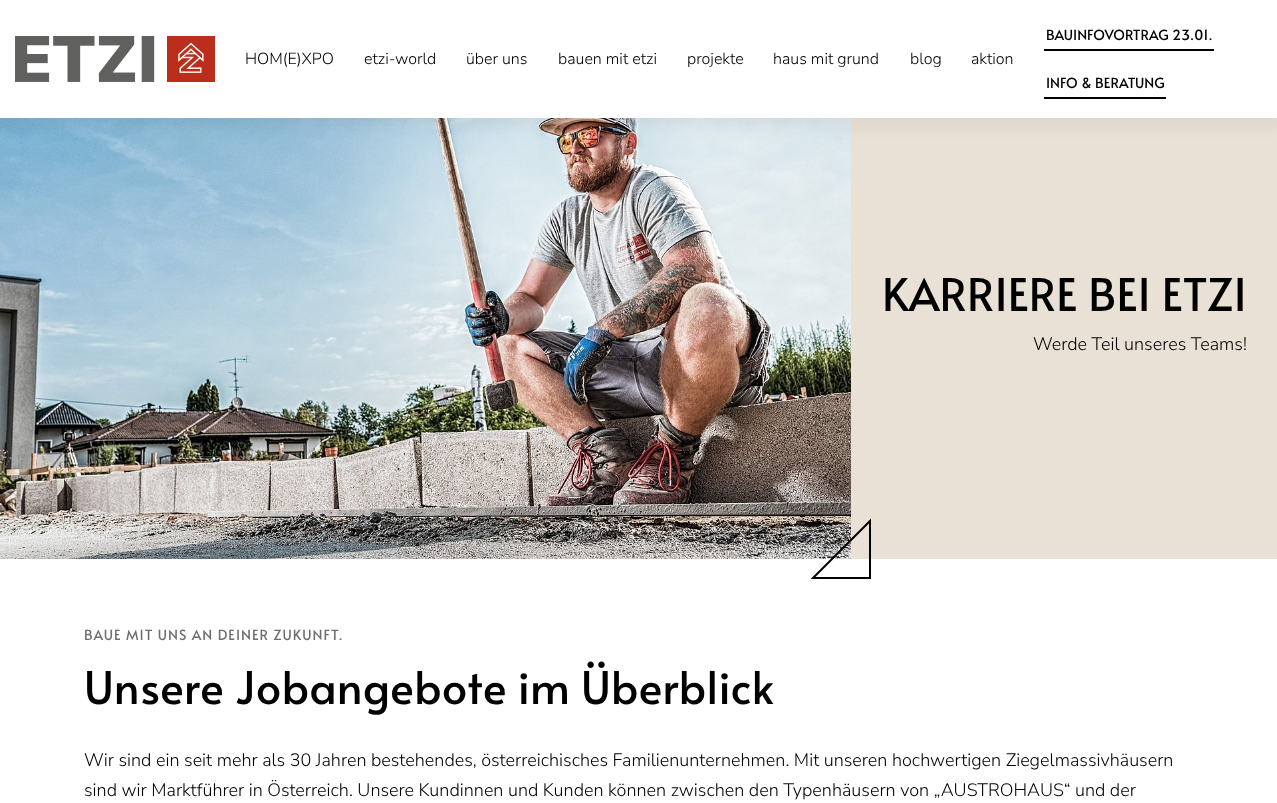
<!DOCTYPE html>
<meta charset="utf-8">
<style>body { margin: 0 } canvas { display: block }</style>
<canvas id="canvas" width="1277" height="803"></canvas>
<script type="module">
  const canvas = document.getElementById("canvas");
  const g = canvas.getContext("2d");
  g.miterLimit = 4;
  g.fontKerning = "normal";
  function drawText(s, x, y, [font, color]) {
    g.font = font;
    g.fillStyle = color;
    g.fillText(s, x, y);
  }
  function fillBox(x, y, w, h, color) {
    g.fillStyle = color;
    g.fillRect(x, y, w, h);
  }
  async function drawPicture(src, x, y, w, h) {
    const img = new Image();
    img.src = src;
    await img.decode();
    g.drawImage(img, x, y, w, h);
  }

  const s1 = ["300 16px Nunito Sans", "#000000"];
  const s2 = ["14px Alata", "#000000"];
  const s3 = ["45px Alata", "#000000"];
  const s4 = ["300 18px Nunito Sans", "#000000"];
  const s5 = ["14px Alata", "#6D6F6F"];

  fillBox(0, 0, 1277, 803, "#FFFFFF");
  await drawPicture("pic2.png", 0, 118, 851, 441);
  fillBox(851, 118, 426, 441, "#E9E1D6");
  g.fillStyle = "rgba(0, 0, 0, 0.05)";
  g.filter = "blur(7.5px)";
  g.beginPath();
  g.rect(-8, -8, 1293, 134);
  g.fill();
  g.filter = "none";
  fillBox(0, 0, 1277, 118, "#FFFFFF");
  await drawPicture("pic1.png", 15, 36, 200, 46);
  drawText("HOM(E)XPO", 245, 64, s1);
  drawText("etzi-world", 364, 64, s1);
  drawText("über uns", 466, 64, s1);
  drawText("bauen mit etzi", 558, 64, s1);
  drawText("projekte", 687, 64, s1);
  drawText("haus mit grund", 773, 64, s1);
  drawText("blog", 910, 64, s1);
  drawText("aktion", 971, 64, s1);
  fillBox(1044, 49, 170, 2, "#000000");
  drawText("BAUINFOVORTRAG 23.01.", 1046, 40, s2);
  fillBox(1044, 97, 122, 2, "#000000");
  drawText("INFO & BERATUNG", 1046, 88, s2);
  drawText("KARRIERE BEI ETZI", 882, 311, s3);
  drawText("Werde Teil unseres Teams!", 1033, 350, s4);
  g.beginPath();
  g.moveTo(870, 521);
  g.lineTo(870, 578);
  g.lineTo(813, 578);
  g.closePath();
  g.strokeStyle = "#000000";
  g.lineWidth = 2;
  g.stroke();
  g.letterSpacing = "1px";
  drawText("BAUE MIT UNS AN DEINER ZUKUNFT.", 84, 640, s5);
  g.letterSpacing = "0px";
  drawText("Unsere Jobangebote im Überblick", 84, 704, s3);
  drawText("Wir sind ein seit mehr als 30 Jahren bestehendes, österreichisches Familienunternehmen. Mit unseren hochwertigen Ziegelmassivhäusern", 84, 766, s4);
  drawText("sind wir Marktführer in Österreich. Unsere Kundinnen und Kunden können zwischen den Typenhäusern von „AUSTROHAUS“ und der", 84, 796, s4);
</script>
